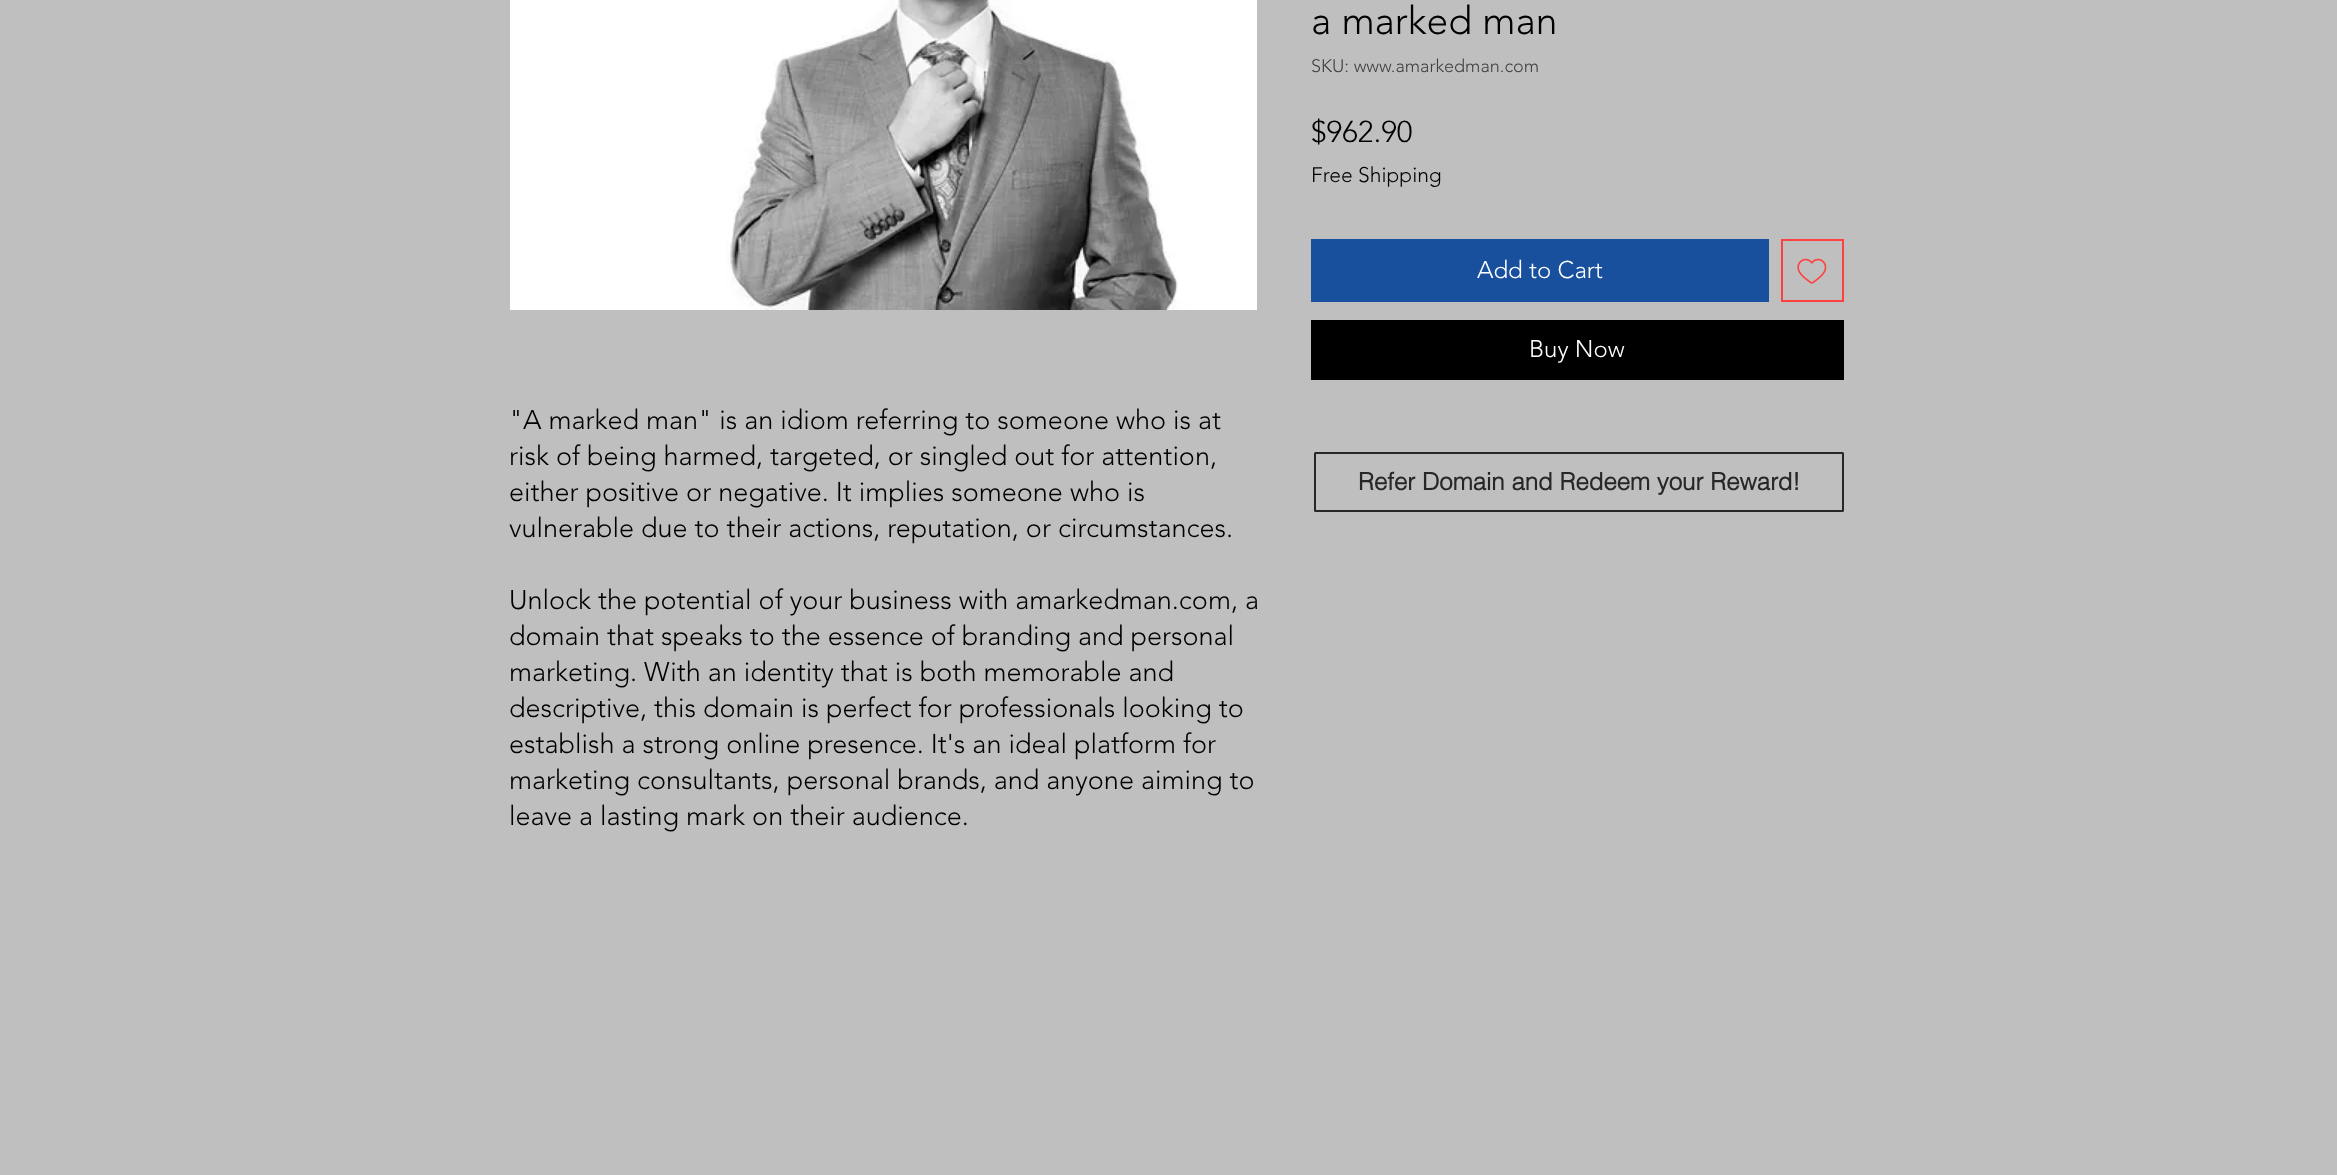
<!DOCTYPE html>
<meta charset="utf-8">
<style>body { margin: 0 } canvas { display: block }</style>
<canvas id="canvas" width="2337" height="1175"></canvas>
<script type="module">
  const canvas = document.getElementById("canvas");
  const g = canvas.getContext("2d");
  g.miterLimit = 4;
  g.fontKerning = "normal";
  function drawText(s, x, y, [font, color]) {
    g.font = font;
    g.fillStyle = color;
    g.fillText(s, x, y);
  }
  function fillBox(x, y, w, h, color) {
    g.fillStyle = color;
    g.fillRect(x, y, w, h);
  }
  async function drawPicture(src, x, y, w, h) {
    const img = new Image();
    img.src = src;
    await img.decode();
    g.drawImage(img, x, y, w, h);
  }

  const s1 = ["300 39px 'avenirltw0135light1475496'", "#000000"];
  const s2 = ["300 18px 'avenirltw0135light1475496'", "#404040"];
  const s3 = ["300 30px 'avenirltw0135light1475496'", "#000000"];
  const s4 = ["300 21px 'avenirltw0135light1475496'", "#000000"];
  const s5 = ["300 24px 'avenirltw0135light1475496'", "#FFFFFF"];
  const s6 = ["300 27px 'avenirltw0135light1475496'", "#000000"];
  const s7 = ["bold 24px helvetica", "#262826"];

  fillBox(0, 0, 2337, 1175, "#BFBFBF");
  drawText("a marked man", 1311, 34, s1);
  drawText("SKU: www.amarkedman.com", 1311, 72, s2);
  drawText("$962.90", 1311, 142, s3);
  drawText("Free Shipping", 1311, 182, s4);
  fillBox(1311, 239, 458, 63, "#18509E");
  drawText("Add to Cart", 1477, 278, s5);
  g.strokeStyle = "#FF4040";
  g.lineWidth = 2;
  g.strokeRect(1782, 240, 61, 61);
  await drawPicture("pic1.png", 1797, 258, 30, 26);
  fillBox(1311, 320, 533, 60, "#000000");
  drawText("Buy Now", 1529, 357, s5);
  await drawPicture("pic2.png", 510, 0, 747, 310);
  drawText("\"A marked man\" is an idiom referring to someone who is at", 509, 429, s6);
  drawText("risk of being harmed, targeted, or singled out for attention,", 509, 465, s6);
  drawText("either positive or negative. It implies someone who is", 509, 501, s6);
  drawText("vulnerable due to their actions, reputation, or circumstances.", 509, 537, s6);
  drawText("Unlock the potential of your business with amarkedman.com, a", 509, 609, s6);
  drawText("domain that speaks to the essence of branding and personal", 509, 645, s6);
  drawText("marketing. With an identity that is both memorable and", 509, 681, s6);
  drawText("descriptive, this domain is perfect for professionals looking to", 509, 717, s6);
  drawText("establish a strong online presence. It's an ideal platform for", 509, 753, s6);
  drawText("marketing consultants, personal brands, and anyone aiming to", 509, 789, s6);
  drawText("leave a lasting mark on their audience.", 509, 825, s6);
  g.beginPath();
  g.roundRect(1315, 453, 528, 58, 0.5);
  g.strokeStyle = "#282626";
  g.stroke();
  drawText("Refer Domain and Redeem your Reward!", 1358, 490, s7);
</script>
